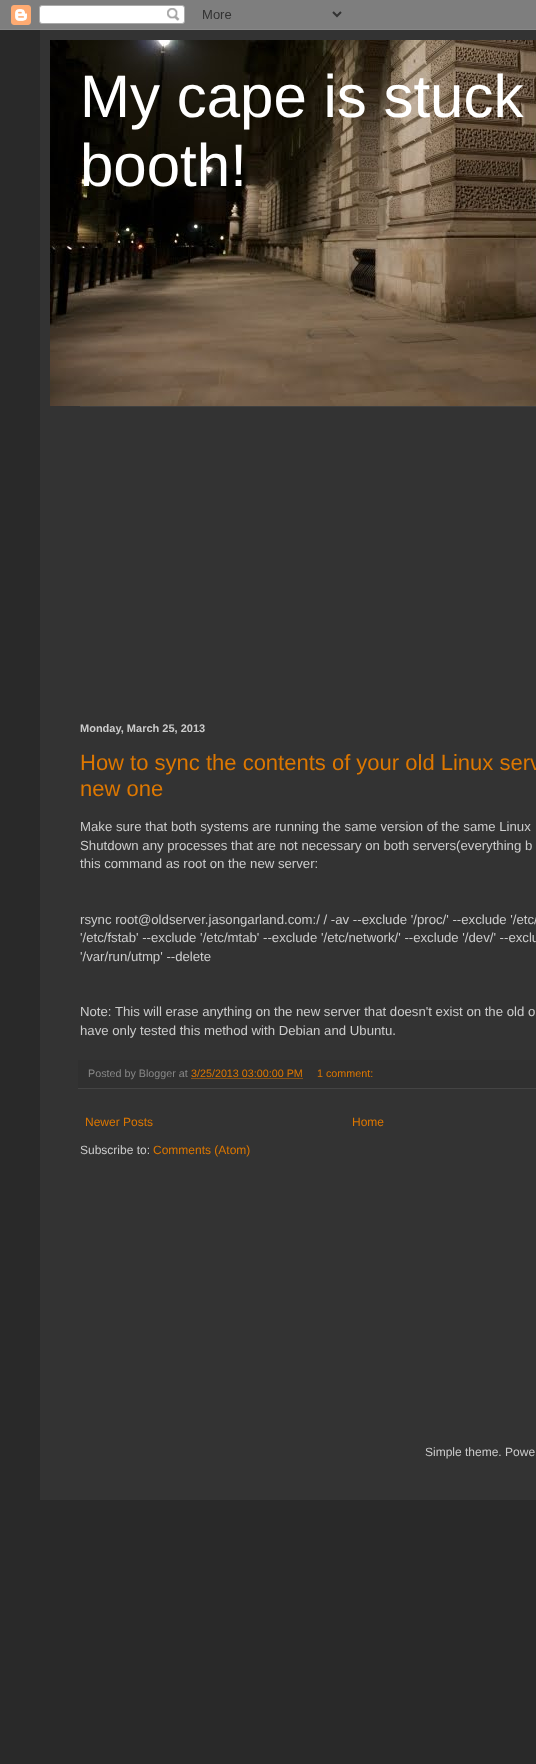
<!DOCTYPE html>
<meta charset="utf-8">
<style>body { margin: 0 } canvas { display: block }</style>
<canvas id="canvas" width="536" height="1764"></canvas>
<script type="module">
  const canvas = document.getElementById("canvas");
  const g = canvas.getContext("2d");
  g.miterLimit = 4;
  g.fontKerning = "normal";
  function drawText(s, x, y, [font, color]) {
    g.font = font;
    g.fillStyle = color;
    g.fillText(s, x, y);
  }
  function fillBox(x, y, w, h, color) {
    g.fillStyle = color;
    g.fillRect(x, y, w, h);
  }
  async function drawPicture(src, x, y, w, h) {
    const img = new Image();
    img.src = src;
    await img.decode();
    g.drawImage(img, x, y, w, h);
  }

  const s1 = ["60px Liberation Sans", "#FFFFFF"];
  const s2 = ["bold 11px Liberation Sans", "#CCCCCC"];
  const s3 = ["22px Liberation Sans", "#DD7700"];
  const s4 = ["13.2px Liberation Sans", "#CCCCCC"];
  const s5 = ["10.75px Liberation Sans", "#888888"];
  const s6 = ["10.75px Liberation Sans", "#DD7700"];
  const s7 = ["12px Liberation Sans", "#DD7700"];
  const s8 = ["12px Liberation Sans", "#CCCCCC"];

  fillBox(0, 0, 536, 1764, "#292929");
  await drawPicture("pic1.png", 0, 0, 536, 30);
  fillBox(40, 30, 496, 1470, "#333333");
  await drawPicture("pic2.png", 50, 40, 486, 366);
  drawText("My cape is stuck", 80, 117, s1);
  drawText("booth!", 80, 186, s1);
  fillBox(80, 406, 456, 1, "#404040");
  drawText("Monday, March 25, 2013", 80, 732, s2);
  drawText("How to sync the contents of your old Linux serv", 80, 770, s3);
  drawText("new one", 80, 796, s3);
  drawText("Make sure that both systems are running the same version of the same Linux", 80, 831, s4);
  drawText("Shutdown any processes that are not necessary on both servers(everything b", 80, 850, s4);
  drawText("this command as root on the new server:", 80, 868, s4);
  drawText("rsync root@oldserver.jasongarland.com:/ / -av --exclude '/proc/' --exclude '/etc/", 80, 924, s4);
  drawText("'/etc/fstab' --exclude '/etc/mtab' --exclude '/etc/network/' --exclude '/dev/' --exclu", 80, 942, s4);
  drawText("'/var/run/utmp' --delete", 80, 961, s4);
  drawText("Note: This will erase anything on the new server that doesn't exist on the old o", 80, 1016, s4);
  drawText("have only tested this method with Debian and Ubuntu.", 80, 1035, s4);
  fillBox(78, 1060, 458, 28, "#303030");
  fillBox(78, 1088, 458, 1, "#444444");
  drawText("Posted by Blogger at", 88, 1077, s5);
  drawText("3/25/2013 03:00:00 PM", 191, 1077, s6);
  g.beginPath();
  g.moveTo(191.5, 1078.5);
  g.lineTo(303.5, 1078.5);
  g.strokeStyle = "#DD7700";
  g.setLineDash([1, 1]);
  g.stroke();
  drawText("1 comment:", 317, 1077, s6);
  drawText("Newer Posts", 85, 1126, s7);
  drawText("Home", 352, 1126, s7);
  drawText("Subscribe to:", 80, 1154, s8);
  drawText("Comments (Atom)", 153, 1154, s7);
  drawText("Simple theme. Powe", 425, 1456, s8);
</script>
